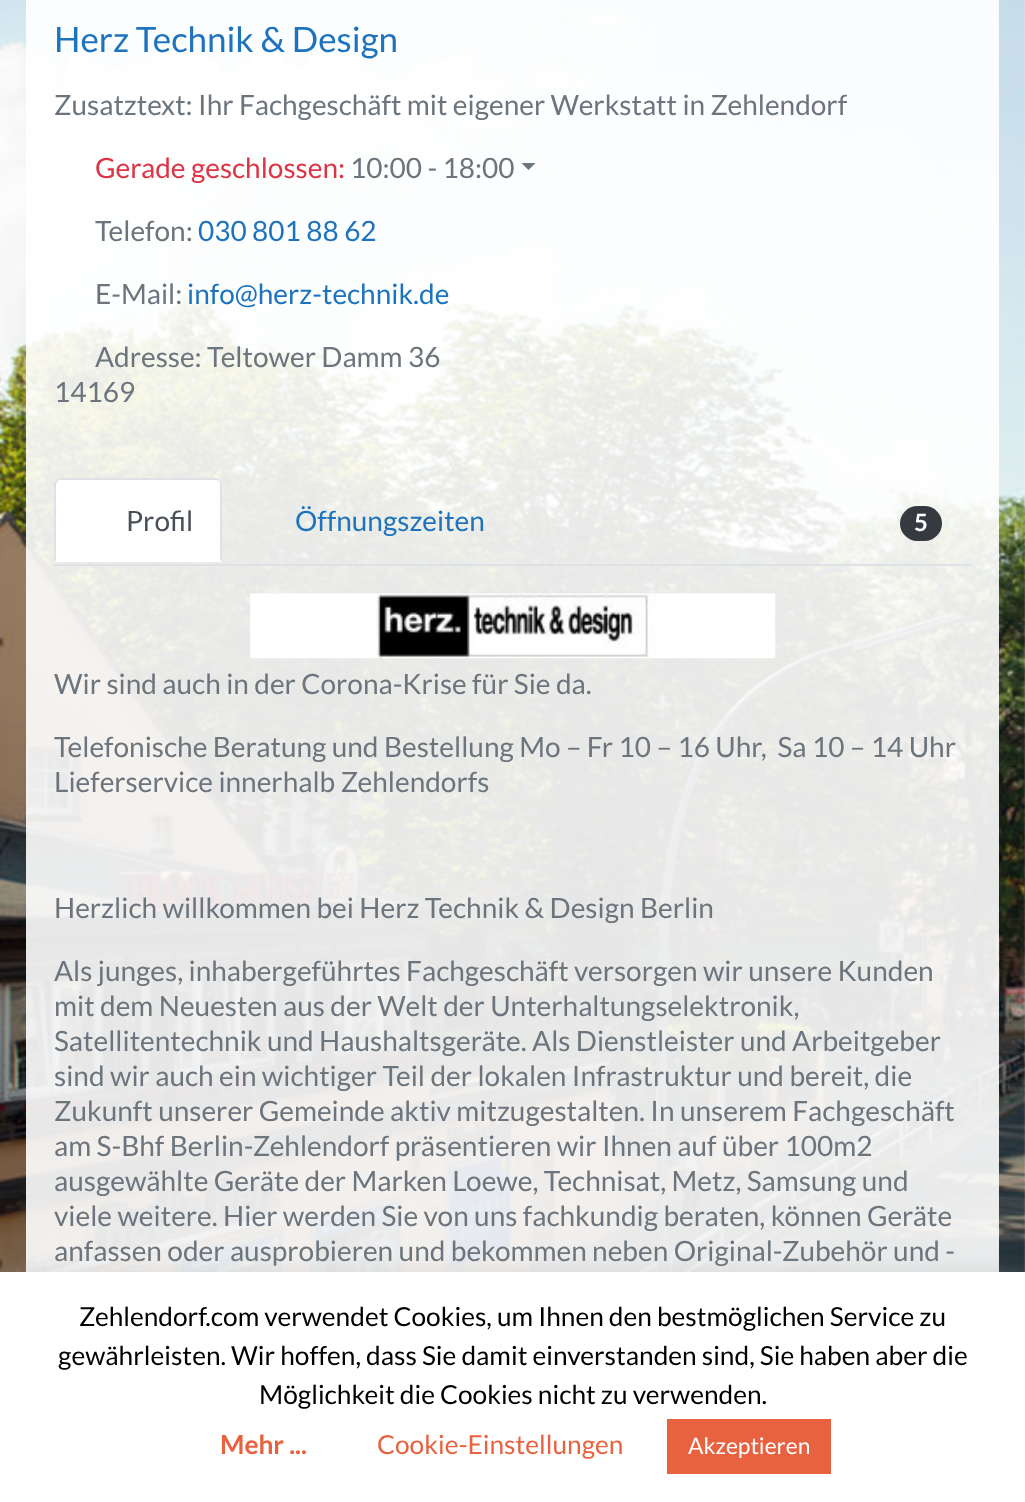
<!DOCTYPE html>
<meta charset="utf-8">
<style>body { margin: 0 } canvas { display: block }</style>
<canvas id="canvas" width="1025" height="1502"></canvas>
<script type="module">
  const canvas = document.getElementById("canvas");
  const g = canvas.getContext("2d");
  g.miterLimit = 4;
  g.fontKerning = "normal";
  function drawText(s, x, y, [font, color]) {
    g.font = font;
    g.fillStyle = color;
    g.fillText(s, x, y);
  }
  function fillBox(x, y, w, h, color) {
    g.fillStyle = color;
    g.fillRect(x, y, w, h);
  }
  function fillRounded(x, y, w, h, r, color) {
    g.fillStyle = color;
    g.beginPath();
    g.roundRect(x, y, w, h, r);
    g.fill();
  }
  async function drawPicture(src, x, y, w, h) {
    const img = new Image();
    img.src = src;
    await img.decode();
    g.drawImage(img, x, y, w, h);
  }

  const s1 = ["35px Lato", "#1E73BE"];
  const s2 = ["28px Lato", "#6C757D"];
  const s3 = ["28px Lato", "#DC3545"];
  const s4 = ["28px Lato", "#1E73BE"];
  const s5 = ["28px Lato", "#495057"];
  const s6 = ["bold 24px Lato", "#FFFFFF"];
  const s7 = ["26.25px Lato", "#000000"];
  const s8 = ["bold 26.25px Lato", "#E86240"];
  const s9 = ["26.25px Lato", "#E86240"];
  const s10 = ["22.75px Lato", "#FFFFFF"];

  fillBox(0, 0, 1025, 1502, "#FFFFFF");
  await drawPicture("pic1.png", 0, 0, 1025, 1272);
  fillBox(26, 0, 973, 1272, "rgba(255, 255, 255, 0.9)");
  drawText("Herz Technik & Design", 54, 52, s1);
  drawText("Zusatztext: Ihr Fachgeschäft mit eigener Werkstatt in Zehlendorf", 54, 115, s2);
  drawText("Gerade geschlossen:", 95, 178, s3);
  drawText("10:00 - 18:00", 350, 178, s2);
  g.beginPath();
  g.moveTo(521.5, 163);
  g.lineTo(535.5, 163);
  g.lineTo(528.5, 170);
  g.closePath();
  g.fill();
  drawText("Telefon:", 95, 241, s2);
  drawText("030 801 88 62", 198, 241, s4);
  drawText("E-Mail:", 95, 304, s2);
  drawText("info@herz-technik.de", 187, 304, s4);
  drawText("Adresse: Teltower Damm 36", 95, 367, s2);
  drawText("14169", 54, 402, s2);
  fillBox(54, 564, 917, 2, "#DEE2E6");
  g.fillStyle = "#FFFFFF";
  g.beginPath();
  g.roundRect(54, 478, 168, 84, [7, 7, 0, 0]);
  g.fill();
  g.fillStyle = "#DEE2E6";
  g.beginPath();
  g.moveTo(61, 478);
  g.bezierCurveTo(59, 478, 57, 479, 56, 480);
  g.lineTo(58, 481);
  g.bezierCurveTo(58, 480, 60, 480, 61, 480);
  g.lineTo(215, 480);
  g.bezierCurveTo(216, 480, 218, 480, 219, 481);
  g.lineTo(220, 480);
  g.bezierCurveTo(219, 479, 217, 478, 215, 478);
  g.closePath();
  g.fill();
  g.beginPath();
  g.moveTo(222, 562);
  g.lineTo(222, 485);
  g.bezierCurveTo(222, 483, 221, 481, 220, 480);
  g.lineTo(219, 481);
  g.lineTo(220, 484);
  g.lineTo(220, 560);
  g.closePath();
  g.fill();
  g.fillStyle = "#FFFFFF";
  g.beginPath();
  g.moveTo(222, 562);
  g.lineTo(54, 562);
  g.lineTo(56, 560);
  g.lineTo(220, 560);
  g.closePath();
  g.fill();
  g.fillStyle = "#DEE2E6";
  g.beginPath();
  g.moveTo(54, 562);
  g.lineTo(56, 560);
  g.lineTo(56, 484);
  g.lineTo(58, 481);
  g.lineTo(56, 480);
  g.lineTo(54, 483);
  g.closePath();
  g.fill();
  drawText("Profil", 126, 531, s5);
  drawText("Öffnungszeiten", 295, 531, s4);
  fillRounded(900, 506, 42, 35, 17.5, "#343A40");
  drawText("5", 914, 531, s6);
  await drawPicture("pic2.png", 250, 593, 526, 66);
  drawText("Wir sind auch in der Corona-Krise für Sie da.", 54, 694, s2);
  drawText("Telefonische Beratung und Bestellung Mo – Fr 10 – 16 Uhr,  Sa 10 – 14 Uhr", 54, 757, s2);
  drawText("Lieferservice innerhalb Zehlendorfs", 54, 792, s2);
  drawText("Herzlich willkommen bei Herz Technik & Design Berlin", 54, 918, s2);
  drawText("Als junges, inhabergeführtes Fachgeschäft versorgen wir unsere Kunden", 54, 981, s2);
  drawText("mit dem Neuesten aus der Welt der Unterhaltungselektronik,", 54, 1016, s2);
  drawText("Satellitentechnik und Haushaltsgeräte. Als Dienstleister und Arbeitgeber", 54, 1051, s2);
  drawText("sind wir auch ein wichtiger Teil der lokalen Infrastruktur und bereit, die", 54, 1086, s2);
  drawText("Zukunft unserer Gemeinde aktiv mitzugestalten. In unserem Fachgeschäft", 54, 1121, s2);
  drawText("am S-Bhf Berlin-Zehlendorf präsentieren wir Ihnen auf über 100m2", 54, 1156, s2);
  drawText("ausgewählte Geräte der Marken Loewe, Technisat, Metz, Samsung und", 54, 1191, s2);
  drawText("viele weitere. Hier werden Sie von uns fachkundig beraten, können Geräte", 54, 1226, s2);
  drawText("anfassen oder ausprobieren und bekommen neben Original-Zubehör und -", 54, 1261, s2);
  g.fillStyle = "rgba(172, 171, 171, 0.3)";
  g.filter = "blur(9px)";
  g.beginPath();
  g.rect(0, 1271, 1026, 231);
  g.fill();
  g.filter = "none";
  fillBox(0, 1272, 1025, 230, "#FFFFFF");
  drawText("Zehlendorf.com verwendet Cookies, um Ihnen den bestmöglichen Service zu", 79, 1326, s7);
  drawText("gewährleisten. Wir hoffen, dass Sie damit einverstanden sind, Sie haben aber die", 58, 1365, s7);
  drawText("Möglichkeit die Cookies nicht zu verwenden.", 259, 1404, s7);
  drawText("Mehr ...", 220, 1454, s8);
  drawText("Cookie-Einstellungen", 377, 1454, s9);
  fillBox(667, 1419, 164, 55, "#E86240");
  drawText("Akzeptieren", 688, 1454, s10);
</script>
